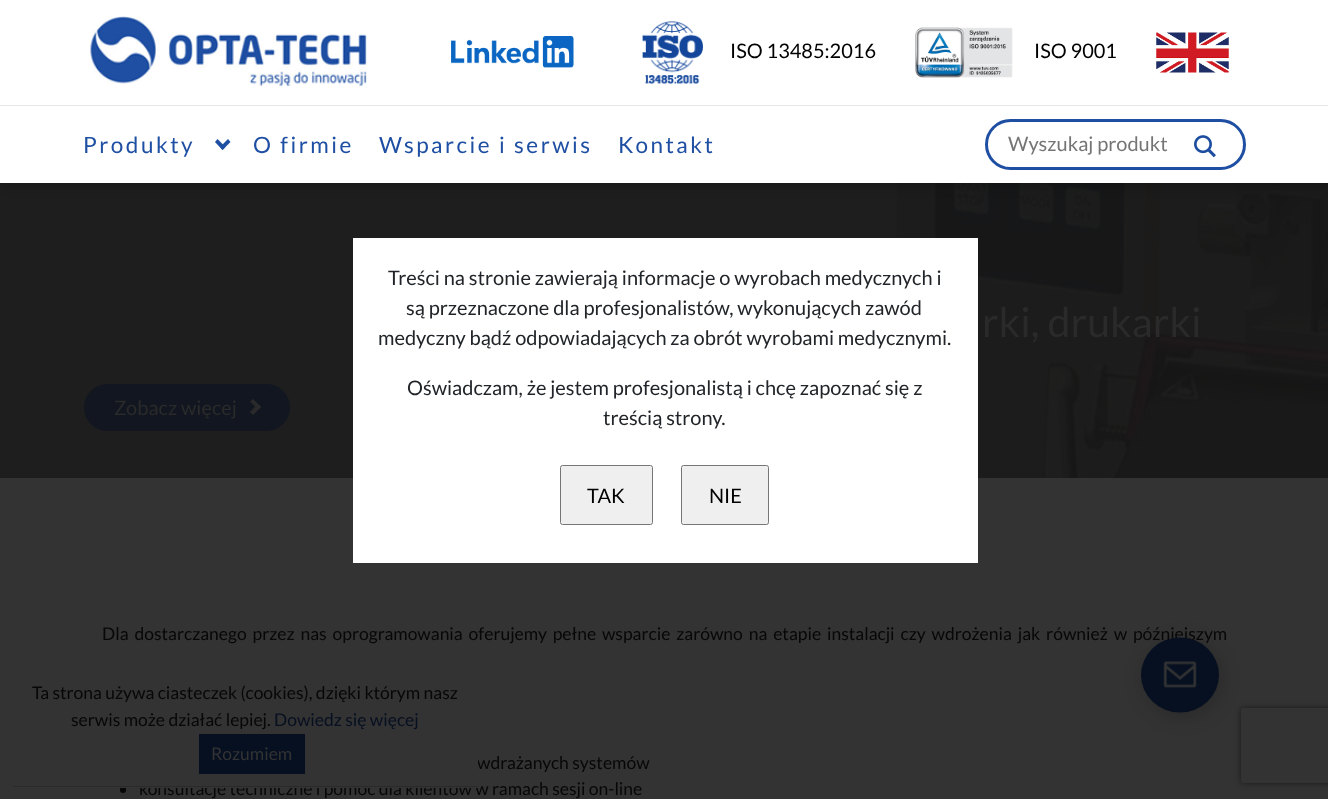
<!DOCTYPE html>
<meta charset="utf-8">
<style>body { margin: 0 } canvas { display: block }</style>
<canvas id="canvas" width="1328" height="799"></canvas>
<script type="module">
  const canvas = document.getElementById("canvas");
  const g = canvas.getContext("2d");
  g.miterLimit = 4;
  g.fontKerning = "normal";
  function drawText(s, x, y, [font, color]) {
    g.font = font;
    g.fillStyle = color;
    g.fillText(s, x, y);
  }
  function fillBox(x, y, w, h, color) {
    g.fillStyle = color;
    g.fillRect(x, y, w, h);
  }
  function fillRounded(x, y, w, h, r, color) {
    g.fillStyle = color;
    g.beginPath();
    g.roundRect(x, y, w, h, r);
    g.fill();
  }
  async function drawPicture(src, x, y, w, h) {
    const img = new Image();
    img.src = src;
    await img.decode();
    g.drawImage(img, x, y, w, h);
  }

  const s1 = ["20px Lato", "#000000"];
  const s2 = ["22.5px Lato", "#1F4FA3"];
  const s3 = ["20px Lato", "#757575"];
  const s4 = ["20px Lato", "#212529"];
  const s5 = ["41.25px Lato", "#2A2A2A"];
  const s6 = ["20px Lato", "#2A2A2A"];
  const s7 = ["17.5px Lato", "#070708"];
  const s8 = ["17.5px Lato", "#061021"];
  const s9 = ["17.5px Lato", "#333333"];

  fillBox(0, 0, 1328, 799, "#333333");
  await drawPicture("pic7.png", 0, 183, 1328, 295);
  g.fillStyle = "rgba(0, 0, 0, 0.2)";
  g.filter = "blur(6px)";
  g.beginPath();
  g.rect(0, 4, 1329, 182);
  g.fill();
  g.filter = "none";
  fillBox(0, 0, 1328, 183, "#FFFFFF");
  await drawPicture("pic1.png", 90, 16, 277, 70);
  await drawPicture("pic2.png", 451, 36, 123, 32);
  await drawPicture("pic3.png", 642, 21, 61, 63);
  drawText("ISO 13485:2016", 730, 58, s1);
  await drawPicture("pic4.png", 915, 27, 98, 51);
  drawText("ISO 9001", 1034, 58, s1);
  await drawPicture("pic5.png", 1156, 32, 73, 41);
  fillBox(0, 105, 1328, 1, "#E6E6E6");
  g.letterSpacing = "2.5px";
  drawText("Produkty", 83, 153, s2);
  g.beginPath();
  g.moveTo(230.5, 142);
  g.lineTo(222.5, 150);
  g.lineTo(220, 147);
  g.lineTo(228, 139);
  g.closePath();
  g.fill();
  g.beginPath();
  g.moveTo(225.5, 147);
  g.lineTo(222.5, 150);
  g.lineTo(215, 142);
  g.lineTo(217.5, 139);
  g.closePath();
  g.fill();
  drawText("O firmie", 253, 153, s2);
  drawText("Wsparcie i serwis", 379, 153, s2);
  drawText("Kontakt", 618, 153, s2);
  g.beginPath();
  g.roundRect(986.5, 120.5, 258, 48, 24);
  g.strokeStyle = "#1F4FA3";
  g.lineWidth = 3;
  g.stroke();
  g.letterSpacing = "0px";
  drawText("Wyszukaj produkt", 1008, 151, s3);
  await drawPicture("pic6.png", 1194, 135, 22, 23);
  fillBox(353, 238, 625, 325, "#FFFFFF");
  drawText("Treści na stronie zawierają informacje o wyrobach medycznych i", 388, 285, s4);
  drawText("są przeznaczone dla profesjonalistów, wykonujących zawód", 406, 315, s4);
  drawText("medyczny bądź odpowiadających za obrót wyrobami medycznymi.", 378, 345, s4);
  drawText("Oświadczam, że jestem profesjonalistą i chcę zapoznać się z", 407, 395, s4);
  drawText("treścią strony.", 603, 425, s4);
  g.fillStyle = "#EFEFEF";
  g.beginPath();
  g.roundRect(560.5, 465.5, 92, 59, 2);
  g.fill();
  g.strokeStyle = "#767676";
  g.lineWidth = 1;
  g.stroke();
  drawText("TAK", 587, 503, s1);
  g.fillStyle = "#EFEFEF";
  g.beginPath();
  g.roundRect(681.5, 465.5, 87, 59, 2);
  g.fill();
  g.stroke();
  drawText("NIE", 709, 503, s1);
  drawText("rki, drukarki", 982, 337, s5);
  fillRounded(84, 384, 206, 47, 23.5, "#111620");
  drawText("Zobacz więcej", 114, 415, s6);
  g.beginPath();
  g.moveTo(253, 399);
  g.lineTo(261, 407);
  g.lineTo(258, 409.5);
  g.lineTo(250, 401.5);
  g.closePath();
  g.fill();
  g.beginPath();
  g.moveTo(258, 404);
  g.lineTo(261, 407);
  g.lineTo(253, 415);
  g.lineTo(250, 412);
  g.closePath();
  g.fill();
  g.fillStyle = "rgba(0, 0, 0, 0.2)";
  g.filter = "blur(9.5px)";
  g.beginPath();
  g.roundRect(1144, 641, 77, 75, 37.5);
  g.fill();
  g.filter = "none";
  g.wordSpacing = "2.5px";
  drawText("Dla dostarczanego przez nas oprogramowania oferujemy pełne wsparcie zarówno na etapie instalacji czy wdrożenia jak również w późniejszym", 102, 640, s7);
  g.fillStyle = "#061021";
  g.beginPath();
  g.ellipse(1180, 675, 39, 37.5, 0, 0, Math.PI * 2);
  g.fill();
  await drawPicture("pic8.png", 1163, 661, 34, 27);
  g.wordSpacing = "0px";
  drawText("wdrażanych systemów", 477, 769, s7);
  fillRounded(120, 786, 6, 7, 3, "#070708");
  drawText("konsultacje techniczne i pomoc dla klientów w ramach sesji on-line", 139, 795, s7);
  fillBox(120, 760, 358, 28, "#333333");
  fillBox(13, 786, 465, 1, "#2A2A2A");
  drawText("Ta strona używa ciasteczek (cookies), dzięki którym nasz", 32, 699, s7);
  drawText("serwis może działać lepiej.", 71, 726, s7);
  drawText("Dowiedz się więcej", 274, 726, s8);
  fillBox(199, 734, 106, 40, "#061021");
  drawText("Rozumiem", 211, 760, s9);
  g.save();
  g.beginPath();
  g.moveTo(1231, 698);
  g.lineTo(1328, 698);
  g.lineTo(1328, 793);
  g.lineTo(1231, 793);
  g.closePath();
  g.moveTo(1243.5, 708);
  g.lineTo(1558.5, 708);
  g.bezierCurveTo(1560, 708, 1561, 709, 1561, 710.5);
  g.lineTo(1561, 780.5);
  g.bezierCurveTo(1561, 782, 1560, 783, 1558.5, 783);
  g.lineTo(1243.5, 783);
  g.bezierCurveTo(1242, 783, 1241, 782, 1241, 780.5);
  g.lineTo(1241, 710.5);
  g.bezierCurveTo(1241, 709, 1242, 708, 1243.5, 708);
  g.closePath();
  g.clip("evenodd");
  g.fillStyle = "#1A1A1A";
  g.filter = "blur(3px)";
  g.beginPath();
  g.roundRect(1241, 708, 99, 75, 2.5);
  g.fill();
  g.filter = "none";
  g.restore();
</script>
